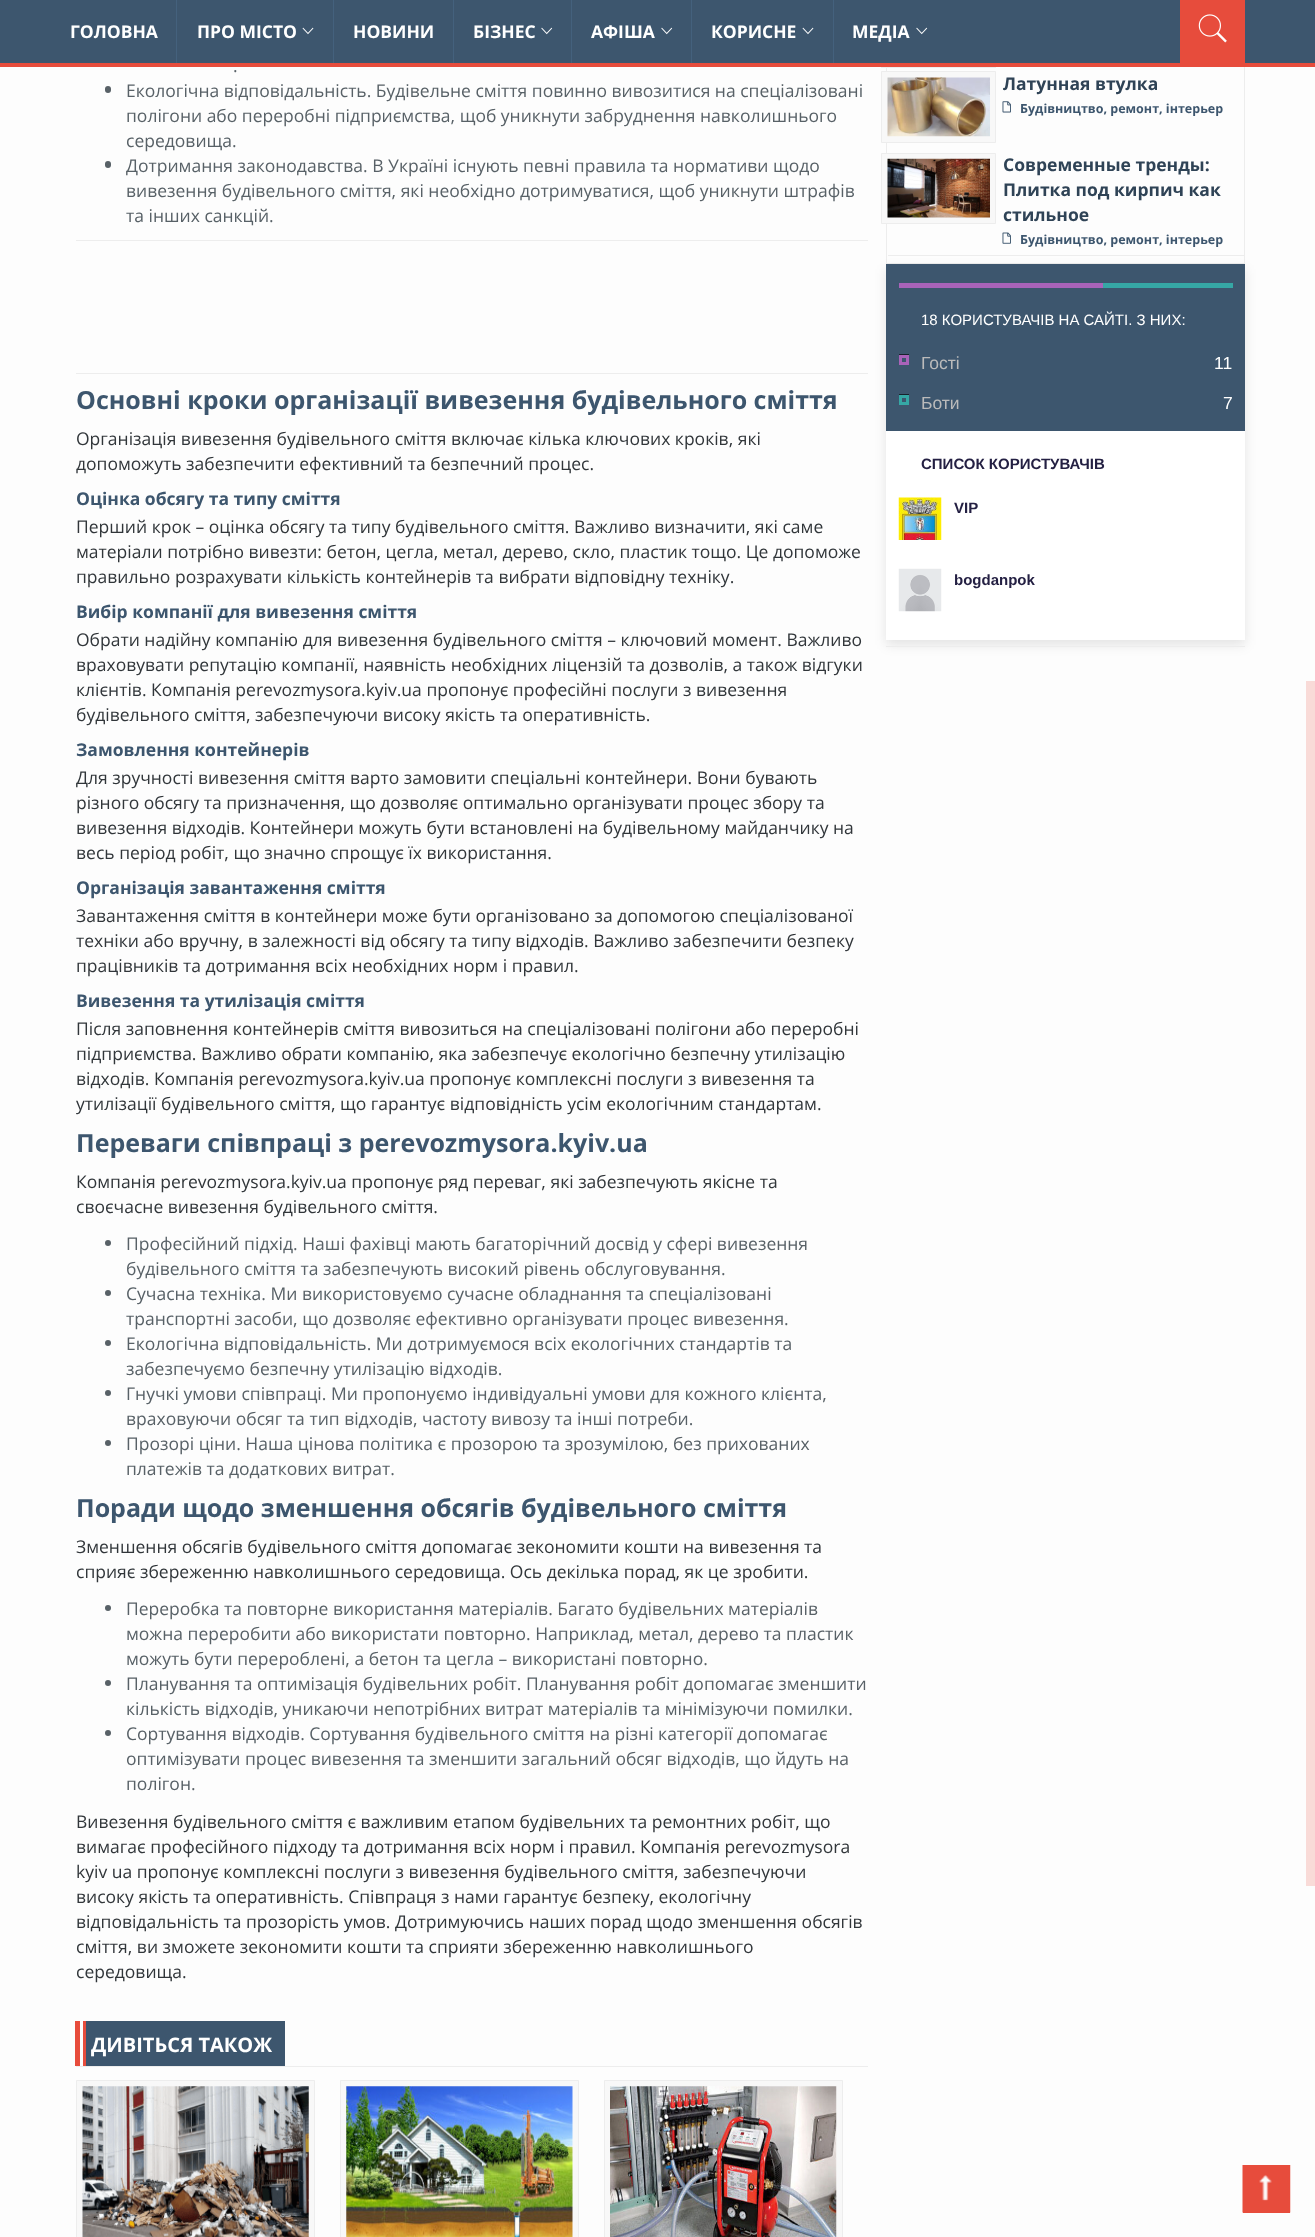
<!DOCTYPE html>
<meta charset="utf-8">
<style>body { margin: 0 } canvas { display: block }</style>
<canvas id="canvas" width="1315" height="2237"></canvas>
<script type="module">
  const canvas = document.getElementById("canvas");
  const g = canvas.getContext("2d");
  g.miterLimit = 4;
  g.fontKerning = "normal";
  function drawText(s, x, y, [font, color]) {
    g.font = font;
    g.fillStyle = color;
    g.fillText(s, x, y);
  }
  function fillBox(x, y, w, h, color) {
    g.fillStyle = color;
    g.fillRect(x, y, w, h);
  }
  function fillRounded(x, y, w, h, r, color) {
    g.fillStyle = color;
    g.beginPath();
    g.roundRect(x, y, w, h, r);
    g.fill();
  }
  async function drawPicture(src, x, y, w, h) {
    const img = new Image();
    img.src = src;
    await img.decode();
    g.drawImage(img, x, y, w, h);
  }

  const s1 = ["bold 17.5px Open Sans", "#FFFFFF"];
  const s2 = ["17.5px Open Sans", "#586167"];
  const s3 = ["bold 25px Open Sans", "#3D566E"];
  const s4 = ["17.5px Open Sans", "#31363A"];
  const s5 = ["bold 17.5px Open Sans", "#3D566E"];
  const s6 = ["bold 20px Open Sans", "#FFFFFF"];
  const s7 = ["bold 17.5px Open Sans", "#2F4356"];
  const s8 = ["bold 12.5px Open Sans", "#3D566E"];
  const s9 = ["15px Liberation Sans", "#FFFFFF"];
  const s10 = ["17.5px Liberation Sans", "#BBBBBB"];
  const s11 = ["17.5px Liberation Sans", "#FFFFFF"];
  const s12 = ["bold 15px Liberation Sans", "#242043"];

  fillBox(0, 0, 1315, 2237, "#FDFDFD");
  g.strokeStyle = "#EDEDED";
  g.strokeRect(886.5, -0.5, 358, 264);
  g.strokeRect(881.5, -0.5, 114, 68);
  fillBox(0, 0, 1315, 63, "#3D566E");
  fillBox(0, 63, 1315, 4, "#E74C3C");
  fillBox(176, 0, 1, 63, "#44617D");
  drawText("ГОЛОВНА", 70, 38, s1);
  fillBox(333, 0, 1, 63, "#44617D");
  drawText("ПРО МІСТО", 197, 38, s1);
  await drawPicture("pic1.png", 302, 27, 12, 8);
  fillBox(453, 0, 1, 63, "#44617D");
  drawText("НОВИНИ", 353, 38, s1);
  fillBox(571, 0, 1, 63, "#44617D");
  drawText("БІЗНЕС", 473, 38, s1);
  await drawPicture("pic2.png", 541, 27, 12, 8);
  fillBox(691, 0, 1, 63, "#44617D");
  drawText("АФІША", 591, 38, s1);
  await drawPicture("pic2.png", 661, 27, 12, 8);
  fillBox(833, 0, 1, 63, "#44617D");
  drawText("КОРИСНЕ", 711, 38, s1);
  await drawPicture("pic1.png", 802, 27, 12, 8);
  drawText("МЕДІА", 852, 38, s1);
  await drawPicture("pic2.png", 916, 27, 12, 8);
  fillBox(1180, 0, 65, 63, "#E74C3C");
  await drawPicture("pic3.png", 1198, 14, 29, 29);
  drawText(".", 233, 72, s2);
  fillRounded(105, 86, 6, 7, 3, "#586167");
  drawText("Екологічна відповідальність. Будівельне сміття повинно вивозитися на спеціалізовані", 126, 97, s2);
  drawText("полігони або переробні підприємства, щоб уникнути забруднення навколишнього", 126, 122, s2);
  drawText("середовища.", 126, 147, s2);
  fillRounded(105, 161, 6, 7, 3, "#586167");
  drawText("Дотримання законодавства. В Україні існують певні правила та нормативи щодо", 126, 172, s2);
  drawText("вивезення будівельного сміття, які необхідно дотримуватися, щоб уникнути штрафів", 126, 197, s2);
  drawText("та інших санкцій.", 126, 222, s2);
  fillBox(76, 240, 792, 1, "#EDEDED");
  fillBox(76, 373, 792, 1, "#EDEDED");
  drawText("Основні кроки організації вивезення будівельного сміття", 76, 409, s3);
  drawText("Організація вивезення будівельного сміття включає кілька ключових кроків, які", 76, 445, s4);
  drawText("допоможуть забезпечити ефективний та безпечний процес.", 76, 470, s4);
  drawText("Оцінка обсягу та типу сміття", 76, 505, s5);
  drawText("Перший крок – оцінка обсягу та типу будівельного сміття. Важливо визначити, які саме", 76, 533, s4);
  drawText("матеріали потрібно вивезти: бетон, цегла, метал, дерево, скло, пластик тощо. Це допоможе", 76, 558, s4);
  drawText("правильно розрахувати кількість контейнерів та вибрати відповідну техніку.", 76, 583, s4);
  drawText("Вибір компанії для вивезення сміття", 76, 618, s5);
  drawText("Обрати надійну компанію для вивезення будівельного сміття – ключовий момент. Важливо", 76, 646, s4);
  drawText("враховувати репутацію компанії, наявність необхідних ліцензій та дозволів, а також відгуки", 76, 671, s4);
  drawText("клієнтів. Компанія perevozmysora.kyiv.ua пропонує професійні послуги з вивезення", 76, 696, s4);
  drawText("будівельного сміття, забезпечуючи високу якість та оперативність.", 76, 721, s4);
  drawText("Замовлення контейнерів", 76, 756, s5);
  drawText("Для зручності вивезення сміття варто замовити спеціальні контейнери. Вони бувають", 76, 784, s4);
  drawText("різного обсягу та призначення, що дозволяє оптимально організувати процес збору та", 76, 809, s4);
  drawText("вивезення відходів. Контейнери можуть бути встановлені на будівельному майданчику на", 76, 834, s4);
  drawText("весь період робіт, що значно спрощує їх використання.", 76, 859, s4);
  drawText("Організація завантаження сміття", 76, 894, s5);
  drawText("Завантаження сміття в контейнери може бути організовано за допомогою спеціалізованої", 76, 922, s4);
  drawText("техніки або вручну, в залежності від обсягу та типу відходів. Важливо забезпечити безпеку", 76, 947, s4);
  drawText("працівників та дотримання всіх необхідних норм і правил.", 76, 972, s4);
  drawText("Вивезення та утилізація сміття", 76, 1007, s5);
  drawText("Після заповнення контейнерів сміття вивозиться на спеціалізовані полігони або переробні", 76, 1035, s4);
  drawText("підприємства. Важливо обрати компанію, яка забезпечує екологічно безпечну утилізацію", 76, 1060, s4);
  drawText("відходів. Компанія perevozmysora.kyiv.ua пропонує комплексні послуги з вивезення та", 76, 1085, s4);
  drawText("утилізації будівельного сміття, що гарантує відповідність усім екологічним стандартам.", 76, 1110, s4);
  drawText("Переваги співпраці з perevozmysora.kyiv.ua", 76, 1152, s3);
  drawText("Компанія perevozmysora.kyiv.ua пропонує ряд переваг, які забезпечують якісне та", 76, 1188, s4);
  drawText("своєчасне вивезення будівельного сміття.", 76, 1213, s4);
  g.fillStyle = "#586167";
  g.beginPath();
  g.arc(108, 1243, 3, 0, Math.PI * 2);
  g.fill();
  drawText("Професійний підхід. Наші фахівці мають багаторічний досвід у сфері вивезення", 126, 1250, s2);
  drawText("будівельного сміття та забезпечують високий рівень обслуговування.", 126, 1275, s2);
  g.beginPath();
  g.arc(108, 1293, 3, 0, Math.PI * 2);
  g.fill();
  drawText("Сучасна техніка. Ми використовуємо сучасне обладнання та спеціалізовані", 126, 1300, s2);
  drawText("транспортні засоби, що дозволяє ефективно організувати процес вивезення.", 126, 1325, s2);
  g.beginPath();
  g.arc(108, 1343, 3, 0, Math.PI * 2);
  g.fill();
  drawText("Екологічна відповідальність. Ми дотримуємося всіх екологічних стандартів та", 126, 1350, s2);
  drawText("забезпечуємо безпечну утилізацію відходів.", 126, 1375, s2);
  g.beginPath();
  g.arc(108, 1393, 3, 0, Math.PI * 2);
  g.fill();
  drawText("Гнучкі умови співпраці. Ми пропонуємо індивідуальні умови для кожного клієнта,", 126, 1400, s2);
  drawText("враховуючи обсяг та тип відходів, частоту вивозу та інші потреби.", 126, 1425, s2);
  g.beginPath();
  g.arc(108, 1443, 3, 0, Math.PI * 2);
  g.fill();
  drawText("Прозорі ціни. Наша цінова політика є прозорою та зрозумілою, без прихованих", 126, 1450, s2);
  drawText("платежів та додаткових витрат.", 126, 1475, s2);
  drawText("Поради щодо зменшення обсягів будівельного сміття", 76, 1517, s3);
  drawText("Зменшення обсягів будівельного сміття допомагає зекономити кошти на вивезення та", 76, 1553, s4);
  drawText("сприяє збереженню навколишнього середовища. Ось декілька порад, як це зробити.", 76, 1578, s4);
  g.fillStyle = "#586167";
  g.beginPath();
  g.arc(108, 1608, 3, 0, Math.PI * 2);
  g.fill();
  drawText("Переробка та повторне використання матеріалів. Багато будівельних матеріалів", 126, 1615, s2);
  drawText("можна переробити або використати повторно. Наприклад, метал, дерево та пластик", 126, 1640, s2);
  drawText("можуть бути перероблені, а бетон та цегла – використані повторно.", 126, 1665, s2);
  g.beginPath();
  g.arc(108, 1683, 3, 0, Math.PI * 2);
  g.fill();
  drawText("Планування та оптимізація будівельних робіт. Планування робіт допомагає зменшити", 126, 1690, s2);
  drawText("кількість відходів, уникаючи непотрібних витрат матеріалів та мінімізуючи помилки.", 126, 1715, s2);
  g.beginPath();
  g.arc(108, 1733, 3, 0, Math.PI * 2);
  g.fill();
  drawText("Сортування відходів. Сортування будівельного сміття на різні категорії допомагає", 126, 1740, s2);
  drawText("оптимізувати процес вивезення та зменшити загальний обсяг відходів, що йдуть на", 126, 1765, s2);
  drawText("полігон.", 126, 1790, s2);
  drawText("Вивезення будівельного сміття є важливим етапом будівельних та ремонтних робіт, що", 76, 1828, s4);
  drawText("вимагає професійного підходу та дотримання всіх норм і правил. Компанія perevozmysora", 76, 1853, s4);
  drawText("kyiv ua пропонує комплексні послуги з вивезення будівельного сміття, забезпечуючи", 76, 1878, s4);
  drawText("високу якість та оперативність. Співпраця з нами гарантує безпеку, екологічну", 76, 1903, s4);
  drawText("відповідальність та прозорість умов. Дотримуючись наших порад щодо зменшення обсягів", 76, 1928, s4);
  drawText("сміття, ви зможете зекономити кошти та сприяти збереженню навколишнього", 76, 1953, s4);
  drawText("середовища.", 76, 1978, s4);
  fillBox(76, 2066, 792, 1, "#EDEDED");
  fillBox(86, 2021, 199, 45, "#3D566E");
  fillBox(83, 2021, 3, 45, "#E74C3C");
  fillBox(75, 2021, 5, 45, "#E74C3C");
  drawText("ДИВІТЬСЯ ТАКОЖ", 91, 2052, s6);
  g.fillStyle = "#F8F8F8";
  g.beginPath();
  g.rect(76.5, 2080.5, 238, 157);
  g.fill();
  g.stroke();
  await drawPicture("pic4.png", 82, 2086, 227, 151);
  g.beginPath();
  g.rect(340.5, 2080.5, 238, 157);
  g.fill();
  g.stroke();
  await drawPicture("pic5.png", 346, 2086, 227, 151);
  g.beginPath();
  g.rect(604.5, 2080.5, 238, 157);
  g.fill();
  g.stroke();
  await drawPicture("pic6.png", 610, 2086, 227, 151);
  g.beginPath();
  g.rect(881.5, 71.5, 114, 71);
  g.fill();
  g.stroke();
  await drawPicture("pic7.png", 887, 77, 103, 60);
  drawText("Латунная втулка", 1003, 90, s7);
  await drawPicture("pic8.png", 1002, 101, 9, 12);
  drawText("Будівництво, ремонт, інтерьер", 1020, 113, s8);
  g.fillStyle = "#F8F8F8";
  g.beginPath();
  g.rect(881.5, 153.5, 114, 70);
  g.fill();
  g.stroke();
  await drawPicture("pic9.png", 887, 158, 103, 60);
  drawText("Современные тренды:", 1003, 171, s7);
  drawText("Плитка под кирпич как", 1003, 196, s7);
  drawText("стильное", 1003, 221, s7);
  await drawPicture("pic10.png", 1002, 232, 9, 12);
  drawText("Будівництво, ремонт, інтерьер", 1020, 244, s8);
  g.fillStyle = "rgba(0, 0, 0, 0.1)";
  g.filter = "blur(6px)";
  g.beginPath();
  g.rect(886, 269, 359, 376);
  g.fill();
  g.filter = "none";
  fillBox(888, 255, 356, 1, "#EDEDED");
  fillBox(886, 264, 359, 167, "#3D566E");
  fillBox(899, 283, 204, 5, "#A963B9");
  fillBox(1103, 283, 130, 5, "#36A7A5");
  drawText("18 КОРИСТУВАЧІВ НА САЙТІ. З НИХ:", 921, 325, s9);
  g.save();
  g.beginPath();
  g.moveTo(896, 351);
  g.lineTo(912, 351);
  g.lineTo(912, 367);
  g.lineTo(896, 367);
  g.closePath();
  g.moveTo(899, 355);
  g.lineTo(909, 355);
  g.lineTo(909, 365);
  g.lineTo(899, 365);
  g.closePath();
  g.clip("evenodd");
  g.fillStyle = "rgba(0, 0, 0, 0.6)";
  g.filter = "blur(0.5px)";
  g.beginPath();
  g.rect(899, 354, 10, 10);
  g.fill();
  g.filter = "none";
  g.restore();
  g.strokeStyle = "#A963B9";
  g.lineWidth = 3;
  g.strokeRect(900.5, 356.5, 7, 7);
  drawText("Гості", 921, 369, s10);
  drawText("11", 1214, 369, s11);
  g.save();
  g.beginPath();
  g.moveTo(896, 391);
  g.lineTo(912, 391);
  g.lineTo(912, 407);
  g.lineTo(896, 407);
  g.closePath();
  g.moveTo(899, 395);
  g.lineTo(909, 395);
  g.lineTo(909, 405);
  g.lineTo(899, 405);
  g.closePath();
  g.clip("evenodd");
  g.fillStyle = "rgba(0, 0, 0, 0.6)";
  g.filter = "blur(0.5px)";
  g.beginPath();
  g.rect(899, 394, 10, 10);
  g.fill();
  g.filter = "none";
  g.restore();
  g.strokeStyle = "#36A7A5";
  g.strokeRect(900.5, 396.5, 7, 7);
  drawText("Боти", 921, 409, s10);
  drawText("7", 1223, 409, s11);
  fillBox(886, 431, 359, 209, "#FFFFFF");
  drawText("СПИСОК КОРИСТУВАЧІВ", 921, 469, s12);
  await drawPicture("pic11.png", 898, 497, 44, 43);
  drawText("VIP", 954, 513, s12);
  await drawPicture("pic12.png", 898, 568, 44, 44);
  drawText("bogdanpok", 954, 585, s12);
  fillBox(886, 646, 359, 1, "#EDEDED");
  fillBox(1306, 681, 9, 1205, "#F9DBD8");
  fillBox(1243, 2165, 47, 48, "#E74C3C");
  await drawPicture("pic13.png", 1242, 2165, 49, 48);
</script>
